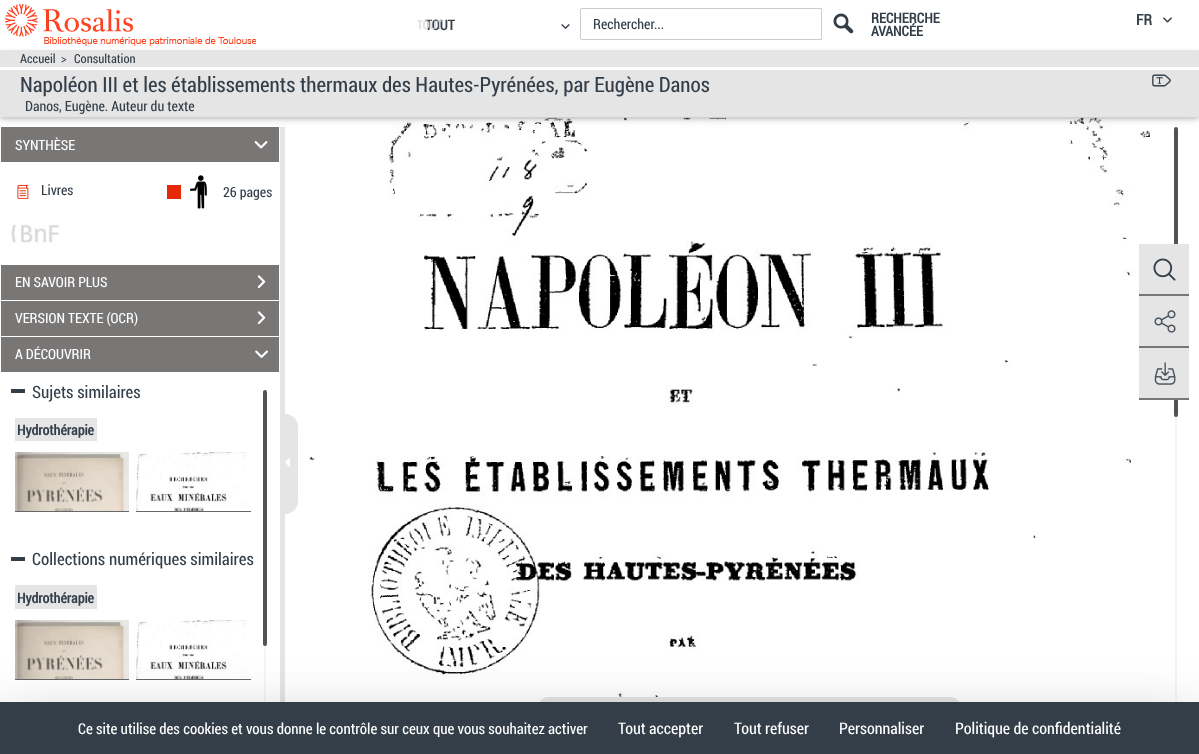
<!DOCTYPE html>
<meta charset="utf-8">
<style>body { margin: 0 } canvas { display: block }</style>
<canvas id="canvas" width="1199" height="754"></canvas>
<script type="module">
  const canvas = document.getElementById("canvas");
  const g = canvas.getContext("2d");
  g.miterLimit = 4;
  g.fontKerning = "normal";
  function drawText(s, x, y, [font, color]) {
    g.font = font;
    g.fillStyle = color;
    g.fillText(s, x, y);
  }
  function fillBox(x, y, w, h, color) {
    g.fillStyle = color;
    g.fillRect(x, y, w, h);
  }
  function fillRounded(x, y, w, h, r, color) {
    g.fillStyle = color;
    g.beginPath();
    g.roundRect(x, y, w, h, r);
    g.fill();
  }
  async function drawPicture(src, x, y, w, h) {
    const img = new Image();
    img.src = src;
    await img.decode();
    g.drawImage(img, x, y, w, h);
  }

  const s1 = ["bold 14px Roboto Condensed", "#333E49"];
  const s2 = ["12px Roboto Condensed", "#CFD2D4"];
  const s3 = ["14px Roboto Condensed", "#333E49"];
  const s4 = ["bold 15px Roboto Condensed", "#333E49"];
  const s5 = ["12.5px Roboto Condensed", "#333E49"];
  const s6 = ["21px Roboto Condensed", "#333E49"];
  const s7 = ["14px Roboto Condensed", "#FFFFFF"];
  const s8 = ["17px Roboto Condensed", "#333E49"];
  const s9 = ["15px Roboto Condensed", "#FFFFFF"];
  const s10 = ["16px Roboto Condensed", "#FFFFFF"];

  fillBox(0, 0, 1199, 754, "#FFFFFF");
  await drawPicture("pic15.png", 308, 117, 842, 585);
  fillRounded(1175, 127, 2, 617, 1, "#F5F5F5");
  fillRounded(1174, 127, 4, 290, 2, "#525252");
  g.save();
  g.beginPath();
  g.rect(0, 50, 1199, 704);
  g.clip();
  g.fillStyle = "rgba(0, 0, 0, 0.12)";
  g.filter = "blur(5px)";
  g.beginPath();
  g.rect(0, 52, 1199, 67);
  g.fill();
  g.filter = "none";
  g.restore();
  g.fillStyle = "rgba(0, 0, 0, 0.16)";
  g.filter = "blur(2px)";
  g.beginPath();
  g.rect(0, 52, 1199, 67);
  g.fill();
  g.filter = "none";
  await drawPicture("pic1.png", 5, 4, 251, 42);
  drawText("TOUT", 425, 30, s1);
  await drawPicture("pic2.png", 561, 24, 9, 5);
  drawText("TOUT", 417, 29, s2);
  g.beginPath();
  g.roundRect(580.5, 8.5, 241, 31, [1.5, 0, 0, 1.5]);
  g.strokeStyle = "#CCCCCC";
  g.stroke();
  drawText("Rechercher...", 593, 29, s3);
  await drawPicture("pic3.png", 833, 13, 21, 21);
  drawText("RECHERCHE", 871, 23, s1);
  drawText("AVANCÉE", 871, 36, s1);
  drawText("FR", 1136, 25, s4);
  await drawPicture("pic4.png", 1163, 17, 9, 6);
  fillBox(0, 50, 1199, 67, "#E5E5E5");
  fillBox(0, 67, 1199, 3, "#FFFFFF");
  drawText("Accueil", 20, 63, s5);
  drawText(">", 61, 63, s5);
  drawText("Consultation", 74, 63, s5);
  drawText("Napoléon III et les établissements thermaux des Hautes-Pyrénées, par Eugène Danos", 20, 92, s6);
  drawText("Danos, Eugène. Auteur du texte", 25, 111, s3);
  await drawPicture("pic5.png", 1152, 74, 19, 13);
  fillBox(280, 127, 5, 575, "#E5E5E5");
  fillBox(1, 127, 278, 35, "#797676");
  drawText("SYNTHÈSE", 15, 150, s7);
  await drawPicture("pic6.png", 254, 141, 14, 8);
  await drawPicture("pic7.png", 17, 184, 12, 15);
  drawText("Livres", 41, 195, s3);
  fillBox(167, 185, 14, 14, "#E52805");
  await drawPicture("pic8.png", 190, 175, 17, 34);
  drawText("26 pages", 223, 197, s3);
  await drawPicture("pic9.png", 11, 224, 49, 19);
  fillBox(1, 265, 278, 35, "#797676");
  drawText("EN SAVOIR PLUS", 15, 287, s7);
  await drawPicture("pic10.png", 257, 275, 9, 14);
  fillBox(1, 301, 278, 35, "#797676");
  drawText("VERSION TEXTE (OCR)", 15, 323, s7);
  await drawPicture("pic10.png", 257, 311, 9, 14);
  fillBox(1, 337, 278, 35, "#797676");
  drawText("A DÉCOUVRIR", 15, 359, s7);
  await drawPicture("pic11.png", 255, 350, 13, 8);
  drawText("Sujets similaires", 32, 398, s8);
  fillBox(11, 389, 14, 4, "#333E49");
  fillBox(15, 418, 82, 23, "#E5E5E5");
  drawText("Hydrothérapie", 17, 435, s1);
  await drawPicture("pic12.png", 15, 452, 114, 59);
  fillBox(15, 511, 114, 1, "#676767");
  await drawPicture("pic13.png", 136, 452, 111, 59);
  fillBox(136, 511, 115, 1, "#676767");
  drawText("Collections numériques similaires", 32, 565, s8);
  fillBox(11, 557, 14, 4, "#333E49");
  fillBox(15, 585, 82, 24, "#E5E5E5");
  drawText("Hydrothérapie", 17, 603, s1);
  await drawPicture("pic12.png", 15, 620, 114, 59);
  fillBox(15, 679, 114, 1, "#676767");
  await drawPicture("pic13.png", 136, 620, 111, 59);
  fillBox(136, 679, 115, 1, "#676767");
  fillRounded(264, 390, 2, 349, 1, "#F5F5F5");
  fillRounded(263, 390, 4, 256, 2, "#525252");
  g.fillStyle = "#E5E5E5";
  g.beginPath();
  g.roundRect(285.5, 414.5, 12, 99, [0, 12.5, 12.5, 0]);
  g.fill();
  g.strokeStyle = "#E5E5E5";
  g.stroke();
  await drawPicture("pic14.png", 285, 458, 5, 9);
  fillBox(1139, 244, 50, 50, "#E5E5E5");
  await drawPicture("pic16.png", 1153, 258, 23, 23);
  fillBox(1139, 294, 50, 2, "#797676");
  fillBox(1139, 296, 50, 50, "#E5E5E5");
  await drawPicture("pic17.png", 1154, 310, 22, 23);
  fillBox(1139, 346, 50, 2, "#797676");
  fillBox(1139, 348, 50, 50, "#E5E5E5");
  await drawPicture("pic18.png", 1154, 362, 22, 23);
  fillBox(1139, 398, 50, 2, "#797676");
  g.fillStyle = "#E5E5E5";
  g.beginPath();
  g.roundRect(538, 697, 423, 57, [10, 10, 0, 0]);
  g.fill();
  g.fillStyle = "rgba(0, 0, 0, 0.25)";
  g.filter = "blur(30px)";
  g.beginPath();
  g.rect(0, 722, 1199, 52);
  g.fill();
  g.filter = "none";
  fillBox(0, 702, 1199, 52, "#333E49");
  drawText("Ce site utilise des cookies et vous donne le contrôle sur ceux que vous souhaitez activer", 78, 734, s9);
  drawText("Tout accepter", 618, 734, s10);
  drawText("Tout refuser", 734, 734, s10);
  drawText("Personnaliser", 839, 734, s10);
  drawText("Politique de confidentialité", 955, 734, s10);
</script>
